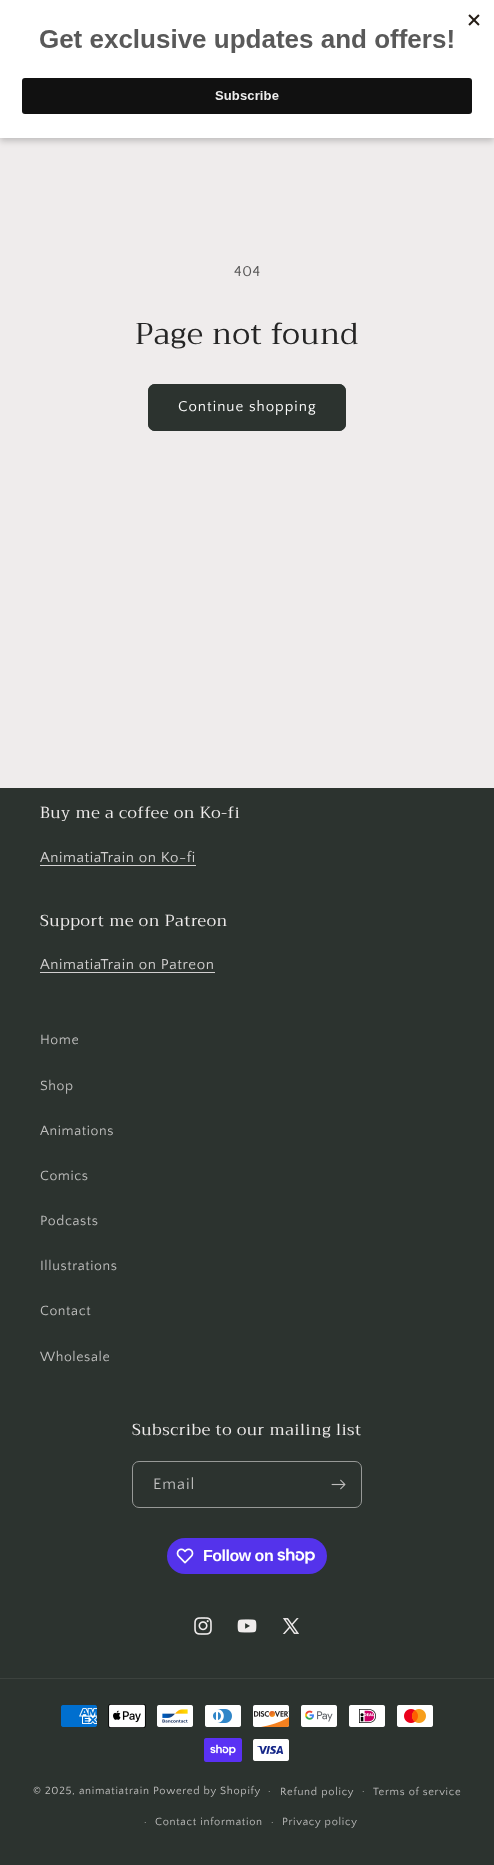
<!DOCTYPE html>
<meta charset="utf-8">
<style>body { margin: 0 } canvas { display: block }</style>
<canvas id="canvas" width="494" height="1865"></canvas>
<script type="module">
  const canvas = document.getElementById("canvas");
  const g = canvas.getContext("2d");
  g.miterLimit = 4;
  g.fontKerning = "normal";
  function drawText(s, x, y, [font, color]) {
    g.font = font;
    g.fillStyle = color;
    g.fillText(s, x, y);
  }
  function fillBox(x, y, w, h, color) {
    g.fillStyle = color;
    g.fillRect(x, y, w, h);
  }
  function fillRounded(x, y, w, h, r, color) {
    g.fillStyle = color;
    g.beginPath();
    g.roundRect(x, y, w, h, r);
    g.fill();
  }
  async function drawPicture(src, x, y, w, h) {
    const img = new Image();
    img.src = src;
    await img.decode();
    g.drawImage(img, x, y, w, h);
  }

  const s1 = ["15px Quattrocento Sans", "#585757"];
  const s2 = ["30px Trirong", "#252525"];
  const s3 = ["15px Quattrocento Sans", "#FFFFFF"];
  const s4 = ["16px Trirong", "#EFECEC"];
  const s5 = ["15px Quattrocento Sans", "#D2D0D0"];
  const s6 = ["14px Quattrocento Sans", "#BEBEBD"];
  const s7 = ["16px Quattrocento Sans", "#BEBEBD"];
  const s8 = ["bold 16px Liberation Sans", "#FFFFFF"];
  const s9 = ["11px Quattrocento Sans", "#BEBEBD"];
  const s10 = ["10px Quattrocento Sans", "#BEBEBD"];

  fillBox(0, 0, 494, 1865, "#EFECEC");
  g.fillStyle = "rgba(0, 0, 0, 0.2)";
  g.filter = "blur(3px)";
  g.beginPath();
  g.rect(0, 3, 494, 138);
  g.fill();
  g.filter = "none";
  fillBox(0, 0, 494, 138, "#FFFFFF");
  await drawPicture("pic1.png", 22, 14, 458, 100);
  g.letterSpacing = "0.6px";
  drawText("404", 234, 276, s1);
  drawText("Page not found", 135, 344, s2);
  fillRounded(148, 384, 198, 47, 7, "#2C332F");
  g.beginPath();
  g.roundRect(148.5, 384.5, 197, 46, 6.5);
  g.strokeStyle = "#2C332F";
  g.stroke();
  g.letterSpacing = "1px";
  drawText("Continue shopping", 178, 411, s3);
  fillBox(0, 788, 494, 1077, "#2C332F");
  g.letterSpacing = "0.6px";
  drawText("Buy me a coffee on Ko-fi", 40, 818, s4);
  drawText("AnimatiaTrain on Ko-fi", 40, 862, s5);
  fillBox(40, 865, 156, 1, "#D2D0D0");
  drawText("Support me on Patreon", 40, 926, s4);
  drawText("AnimatiaTrain on Patreon", 40, 969, s5);
  fillBox(40, 972, 175, 1, "#D2D0D0");
  drawText("Home", 40, 1044, s6);
  drawText("Shop", 40, 1090, s6);
  drawText("Animations", 40, 1135, s6);
  drawText("Comics", 40, 1180, s6);
  drawText("Podcasts", 40, 1225, s6);
  drawText("Illustrations", 40, 1270, s6);
  drawText("Contact", 40, 1315, s6);
  drawText("Wholesale", 40, 1361, s6);
  drawText("Subscribe to our mailing list", 132, 1435, s4);
  g.beginPath();
  g.roundRect(132.5, 1461.5, 229, 46, 6.5);
  g.strokeStyle = "#979997";
  g.stroke();
  g.letterSpacing = "1px";
  drawText("Email", 153, 1489, s7);
  await drawPicture("pic2.png", 331, 1479, 15, 11);
  fillRounded(167, 1538, 160, 36, 18, "#5433EB");
  await drawPicture("pic3.png", 176, 1548, 18, 16);
  g.letterSpacing = "-0.5px";
  drawText("Follow on", 203, 1561, s8);
  await drawPicture("pic4.png", 277, 1548, 38, 16);
  await drawPicture("pic5.png", 194, 1617, 18, 18);
  await drawPicture("pic6.png", 237, 1619, 20, 14);
  await drawPicture("pic7.png", 282, 1618, 17, 16);
  fillBox(0, 1678, 494, 1, "#3C423E");
  await drawPicture("pic8.png", 61, 1705, 36, 22);
  await drawPicture("pic9.png", 108, 1704, 38, 24);
  await drawPicture("pic10.png", 157, 1705, 36, 22);
  await drawPicture("pic11.png", 205, 1705, 36, 22);
  await drawPicture("pic12.png", 253, 1705, 36, 22);
  await drawPicture("pic13.png", 301, 1705, 36, 22);
  await drawPicture("pic14.png", 349, 1705, 36, 22);
  await drawPicture("pic15.png", 397, 1705, 36, 22);
  await drawPicture("pic16.png", 204, 1738, 38, 24);
  await drawPicture("pic17.png", 253, 1739, 36, 22);
  g.letterSpacing = "0.7px";
  drawText("© 2025, animatiatrain Powered by Shopify", 33, 1794, s9);
  drawText("·", 268, 1794, s10);
  drawText("Refund policy", 280, 1795, s9);
  drawText("·", 362, 1794, s10);
  drawText("Terms of service", 373, 1795, s9);
  drawText("·", 144, 1825, s10);
  drawText("Contact information", 155, 1825, s9);
  drawText("·", 271, 1825, s10);
  drawText("Privacy policy", 282, 1825, s9);
</script>
